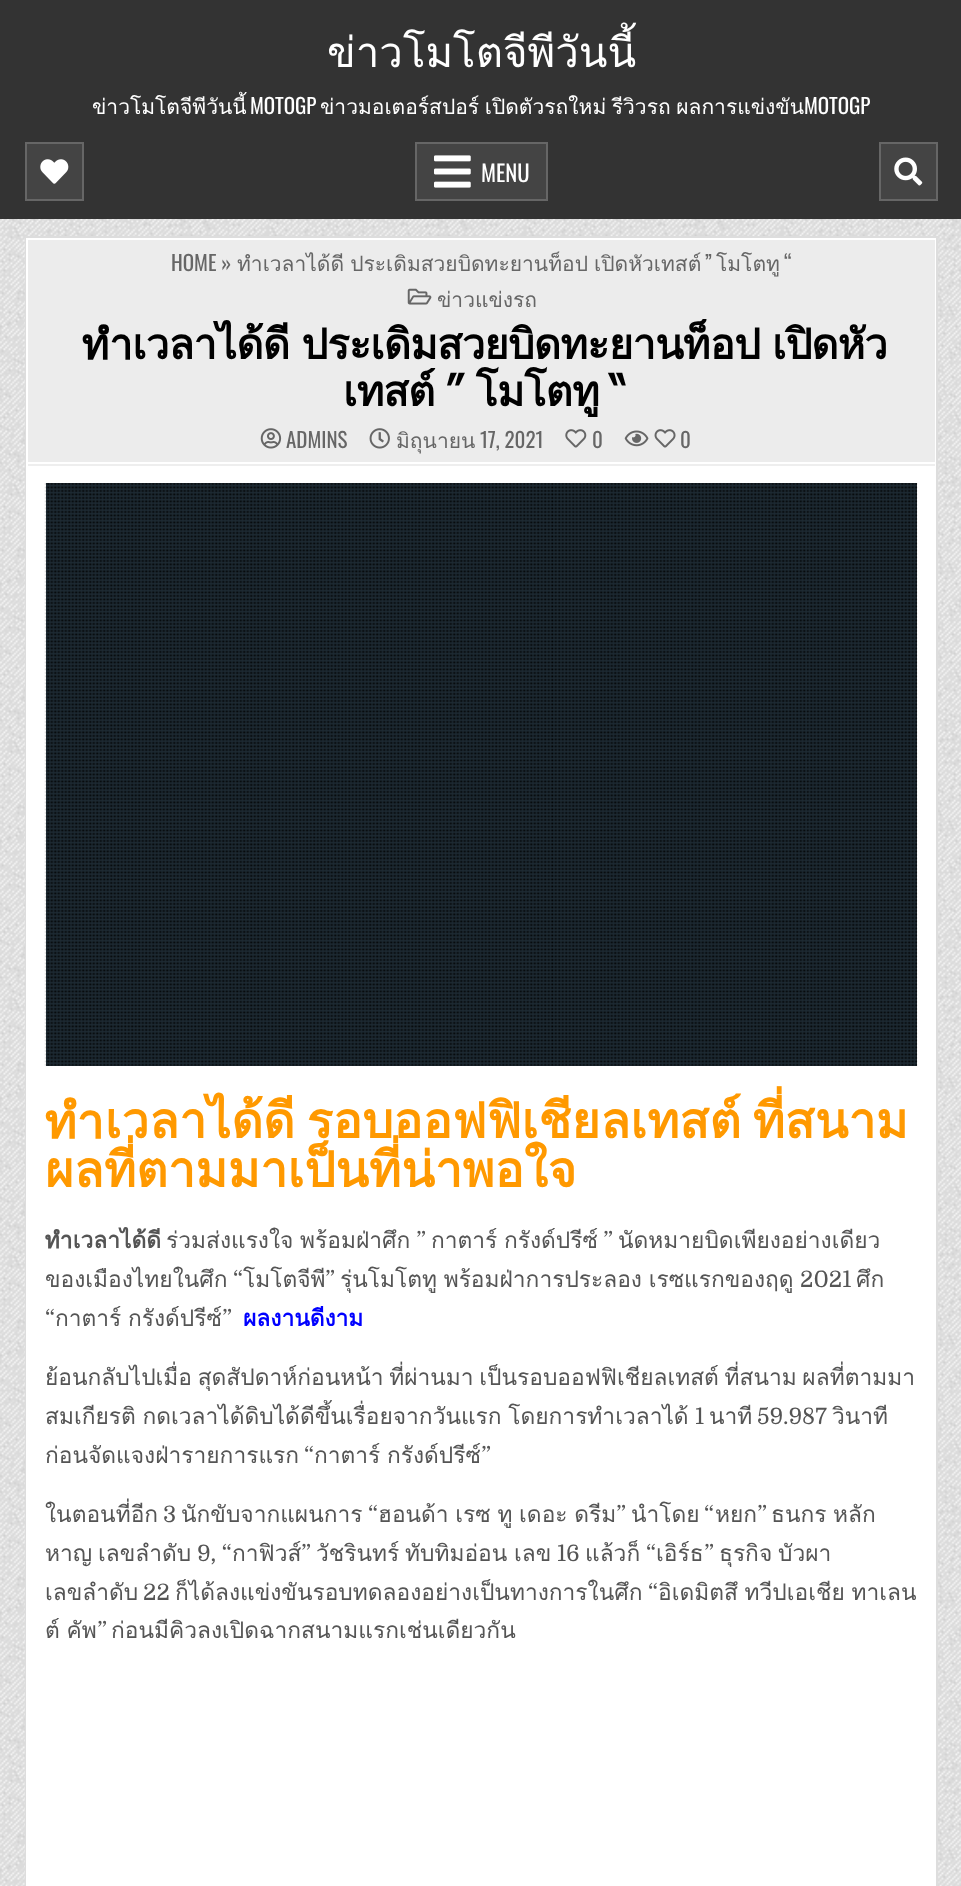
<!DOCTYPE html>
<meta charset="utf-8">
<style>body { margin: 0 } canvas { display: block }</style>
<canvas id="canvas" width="961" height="1886"></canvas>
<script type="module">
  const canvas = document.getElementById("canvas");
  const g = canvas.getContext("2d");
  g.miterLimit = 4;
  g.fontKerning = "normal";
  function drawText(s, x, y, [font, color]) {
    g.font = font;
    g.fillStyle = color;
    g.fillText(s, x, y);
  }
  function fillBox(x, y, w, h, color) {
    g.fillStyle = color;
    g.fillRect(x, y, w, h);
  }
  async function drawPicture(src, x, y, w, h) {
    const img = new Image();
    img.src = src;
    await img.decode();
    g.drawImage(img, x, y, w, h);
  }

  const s1 = ["42px Loma", "#FFFFFF"];
  const s2 = ["21px Loma", "#FFFFFF"];
  const s3 = ["21px Oswald", "#FFFFFF"];
  const s4 = ["22.75px Oswald", "#FFFFFF"];
  const s5 = ["21px Oswald", "#666666"];
  const s6 = ["21px Loma", "#666666"];
  const s7 = ["bold 42px Loma", "#000000"];
  const s8 = ["bold 49px Loma", "#FF9900"];
  const s9 = ["bold 22.75px Loma", "#555555"];
  const s10 = ["22.75px Loma", "#555555"];
  const s11 = ["22.75px Domine", "#555555"];
  const s12 = ["bold 22.75px Loma", "#0000FF"];

  fillBox(0, 0, 961, 1886, "#FFFFFF");
  await drawPicture("pic1.png", 0, 219, 961, 1667);
  fillBox(0, 0, 961, 219, "#333333");
  drawText("ข่าวโมโตจีพีวันนี้", 327, 67, s1);
  drawText("ข่าวโมโตจีพีวันนี้", 92, 114, s2);
  drawText("MOTOGP", 250, 114, s3);
  g.wordSpacing = "-1.5px";
  drawText("ข่าวมอเตอร์สปอร์ เปิดตัวรถใหม่ รีวิวรถ ผลการแข่งขัน", 320, 114, s2);
  g.wordSpacing = "0px";
  drawText("MOTOGP", 804, 114, s3);
  g.fillStyle = "#444444";
  g.beginPath();
  g.rect(26, 143, 57, 57);
  g.fill();
  g.strokeStyle = "#666666";
  g.lineWidth = 2;
  g.stroke();
  await drawPicture("pic2.png", 40, 159, 29, 25);
  g.beginPath();
  g.rect(416, 143, 131, 57);
  g.fill();
  g.stroke();
  await drawPicture("pic3.png", 434, 155, 37, 33);
  drawText("MENU", 481, 182, s4);
  g.fillStyle = "#444444";
  g.beginPath();
  g.rect(880, 143, 57, 57);
  g.fill();
  g.stroke();
  await drawPicture("pic4.png", 894, 157, 29, 29);
  fillBox(28, 466, 906, 1420, "#FFFFFF");
  g.strokeStyle = "#DDDDDD";
  g.strokeRect(26, 237, 911, 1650);
  g.strokeStyle = "#FFFFFF";
  g.strokeRect(27, 239, 908, 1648);
  fillBox(28, 240, 907, 222, "#ECECEC");
  fillBox(28, 464, 907, 2, "#EEEEEE");
  fillBox(28, 462, 907, 2, "#FFFFFF");
  drawText("HOME »", 171, 271, s5);
  g.wordSpacing = "-1px";
  drawText("ทำเวลาได้ดี ประเดิมสวยบิดทะยานท็อป เปิดหัวเทสต์", 237, 271, s6);
  g.wordSpacing = "0px";
  drawText("”", 705, 271, s5);
  drawText("โมโตทู", 716, 271, s6);
  drawText("“", 784, 271, s5);
  await drawPicture("pic5.png", 407, 288, 25, 17);
  drawText("ข่าวแข่งรถ", 437, 307, s6);
  g.letterSpacing = "-0.9px";
  g.wordSpacing = "-1px";
  drawText("ทำเวลาได้ดี ประเดิมสวยบิดทะยานท็อป เปิดหัว", 82, 359, s7);
  g.wordSpacing = "-2.5px";
  drawText("เทสต์ ” โมโตทู “", 343, 406, s7);
  await drawPicture("pic6.png", 260, 428, 22, 21);
  g.letterSpacing = "0px";
  g.wordSpacing = "0px";
  drawText("ADMINS", 286, 448, s5);
  await drawPicture("pic7.png", 369, 428, 21, 21);
  drawText("มิถุนายน", 396, 448, s6);
  drawText("17, 2021", 480, 448, s5);
  await drawPicture("pic8.png", 565, 429, 22, 19);
  drawText("0", 592, 448, s5);
  await drawPicture("pic9.png", 624, 430, 25, 17);
  await drawPicture("pic10.png", 654, 429, 22, 19);
  drawText("0", 680, 448, s5);
  fillBox(46, 483, 871, 583, "#1E2B34");
  await drawPicture("pic11.png", 44, 483, 874, 583);
  g.wordSpacing = "-5px";
  drawText("ทำเวลาได้ดี รอบออฟฟิเชียลเทสต์ ที่สนาม", 45, 1138, s8);
  g.wordSpacing = "0px";
  drawText("ผลที่ตามมาเป็นที่น่าพอใจ", 45, 1187, s8);
  drawText("ทำเวลาได้ดี", 45, 1248, s9);
  g.wordSpacing = "-1px";
  drawText("ร่วมส่งแรงใจ พร้อมฝ่าศึก", 166, 1248, s10);
  g.wordSpacing = "0px";
  drawText("”", 416, 1248, s11);
  g.wordSpacing = "-1px";
  drawText("กาตาร์ กรังด์ปรีซ์", 431, 1248, s10);
  g.wordSpacing = "0px";
  drawText("”", 603, 1248, s11);
  drawText("นัดหมายบิดเพียงอย่างเดียว", 618, 1248, s10);
  drawText("ของเมืองไทยในศึก", 45, 1287, s10);
  drawText("“", 233, 1287, s11);
  drawText("โมโตจีพี", 243, 1287, s10);
  drawText("”", 325, 1287, s11);
  g.wordSpacing = "-1px";
  drawText("รุ่นโมโตทู พร้อมฝ่าการประลอง เรซแรกของฤดู", 340, 1287, s10);
  g.wordSpacing = "0px";
  drawText("2021", 800, 1287, s11);
  drawText("ศึก", 856, 1287, s10);
  drawText("“", 45, 1326, s11);
  g.wordSpacing = "-1px";
  drawText("กาตาร์ กรังด์ปรีซ์", 55, 1326, s10);
  g.wordSpacing = "0px";
  drawText("”", 222, 1326, s11);
  drawText("ผลงานดีงาม", 243, 1326, s12);
  g.wordSpacing = "-2px";
  drawText("ย้อนกลับไปเมื่อ สุดสัปดาห์ก่อนหน้า ที่ผ่านมา เป็นรอบออฟฟิเชียลเทสต์ ที่สนาม ผลที่ตามมา", 45, 1385, s10);
  g.wordSpacing = "-1px";
  drawText("สมเกียรติ กดเวลาได้ดิบได้ดีขึ้นเรื่อยจากวันแรก โดยการทำเวลาได้", 45, 1424, s10);
  g.wordSpacing = "0px";
  drawText("1", 695, 1424, s11);
  drawText("นาที", 709, 1424, s10);
  drawText("59.987", 757, 1424, s11);
  drawText("วินาที", 832, 1424, s10);
  drawText("ก่อนจัดแจงฝ่ารายการแรก", 45, 1463, s10);
  drawText("“", 304, 1463, s11);
  g.wordSpacing = "-1px";
  drawText("กาตาร์ กรังด์ปรีซ์", 314, 1463, s10);
  g.wordSpacing = "0px";
  drawText("”", 481, 1463, s11);
  drawText("ในตอนที่อีก", 45, 1522, s10);
  drawText("3", 163, 1522, s11);
  drawText("นักขับจากแผนการ", 181, 1522, s10);
  drawText("“", 368, 1522, s11);
  g.wordSpacing = "-1px";
  drawText("ฮอนด้า เรซ ทู เดอะ ดรีม", 378, 1522, s10);
  g.wordSpacing = "0px";
  drawText("”", 616, 1522, s11);
  drawText("นำโดย", 631, 1522, s10);
  drawText("“", 704, 1522, s11);
  drawText("หยก", 715, 1522, s10);
  drawText("”", 757, 1522, s11);
  g.wordSpacing = "-1px";
  drawText("ธนกร หลัก", 771, 1522, s10);
  g.wordSpacing = "0px";
  drawText("เลขลำดับ", 98, 1561, s10);
  drawText("9, “", 197, 1561, s11);
  drawText("กาฟิวส์", 232, 1561, s10);
  drawText("”", 301, 1561, s11);
  drawText("วัชรินทร์", 316, 1561, s10);
  drawText("ทับทิมอ่อน", 405, 1561, s10);
  drawText("แล้วก็", 585, 1561, s10);
  drawText("“", 646, 1561, s11);
  drawText("เอิร์ธ", 656, 1561, s10);
  drawText("ธุรกิจ", 719, 1561, s10);
  drawText("บัวผา", 778, 1561, s10);
  drawText("หาญ", 45, 1561, s10);
  drawText("เลข", 514, 1561, s10);
  drawText("16", 557, 1561, s11);
  drawText("”", 704, 1561, s11);
  drawText("เลขลำดับ", 45, 1600, s10);
  drawText("22", 143, 1600, s11);
  drawText("ก็ได้ลงแข่งขันรอบทดลองอย่างเป็นทางการในศึก", 175, 1600, s10);
  drawText("“", 648, 1600, s11);
  g.wordSpacing = "-1px";
  drawText("อิเดมิตสึ ทวีปเอเชีย ทาเลน", 658, 1600, s10);
  drawText("ต์ คัพ", 45, 1638, s10);
  g.wordSpacing = "0px";
  drawText("”", 97, 1638, s11);
  drawText("ก่อนมีคิวลงเปิดฉากสนามแรกเช่นเดียวกัน", 111, 1638, s10);
</script>
